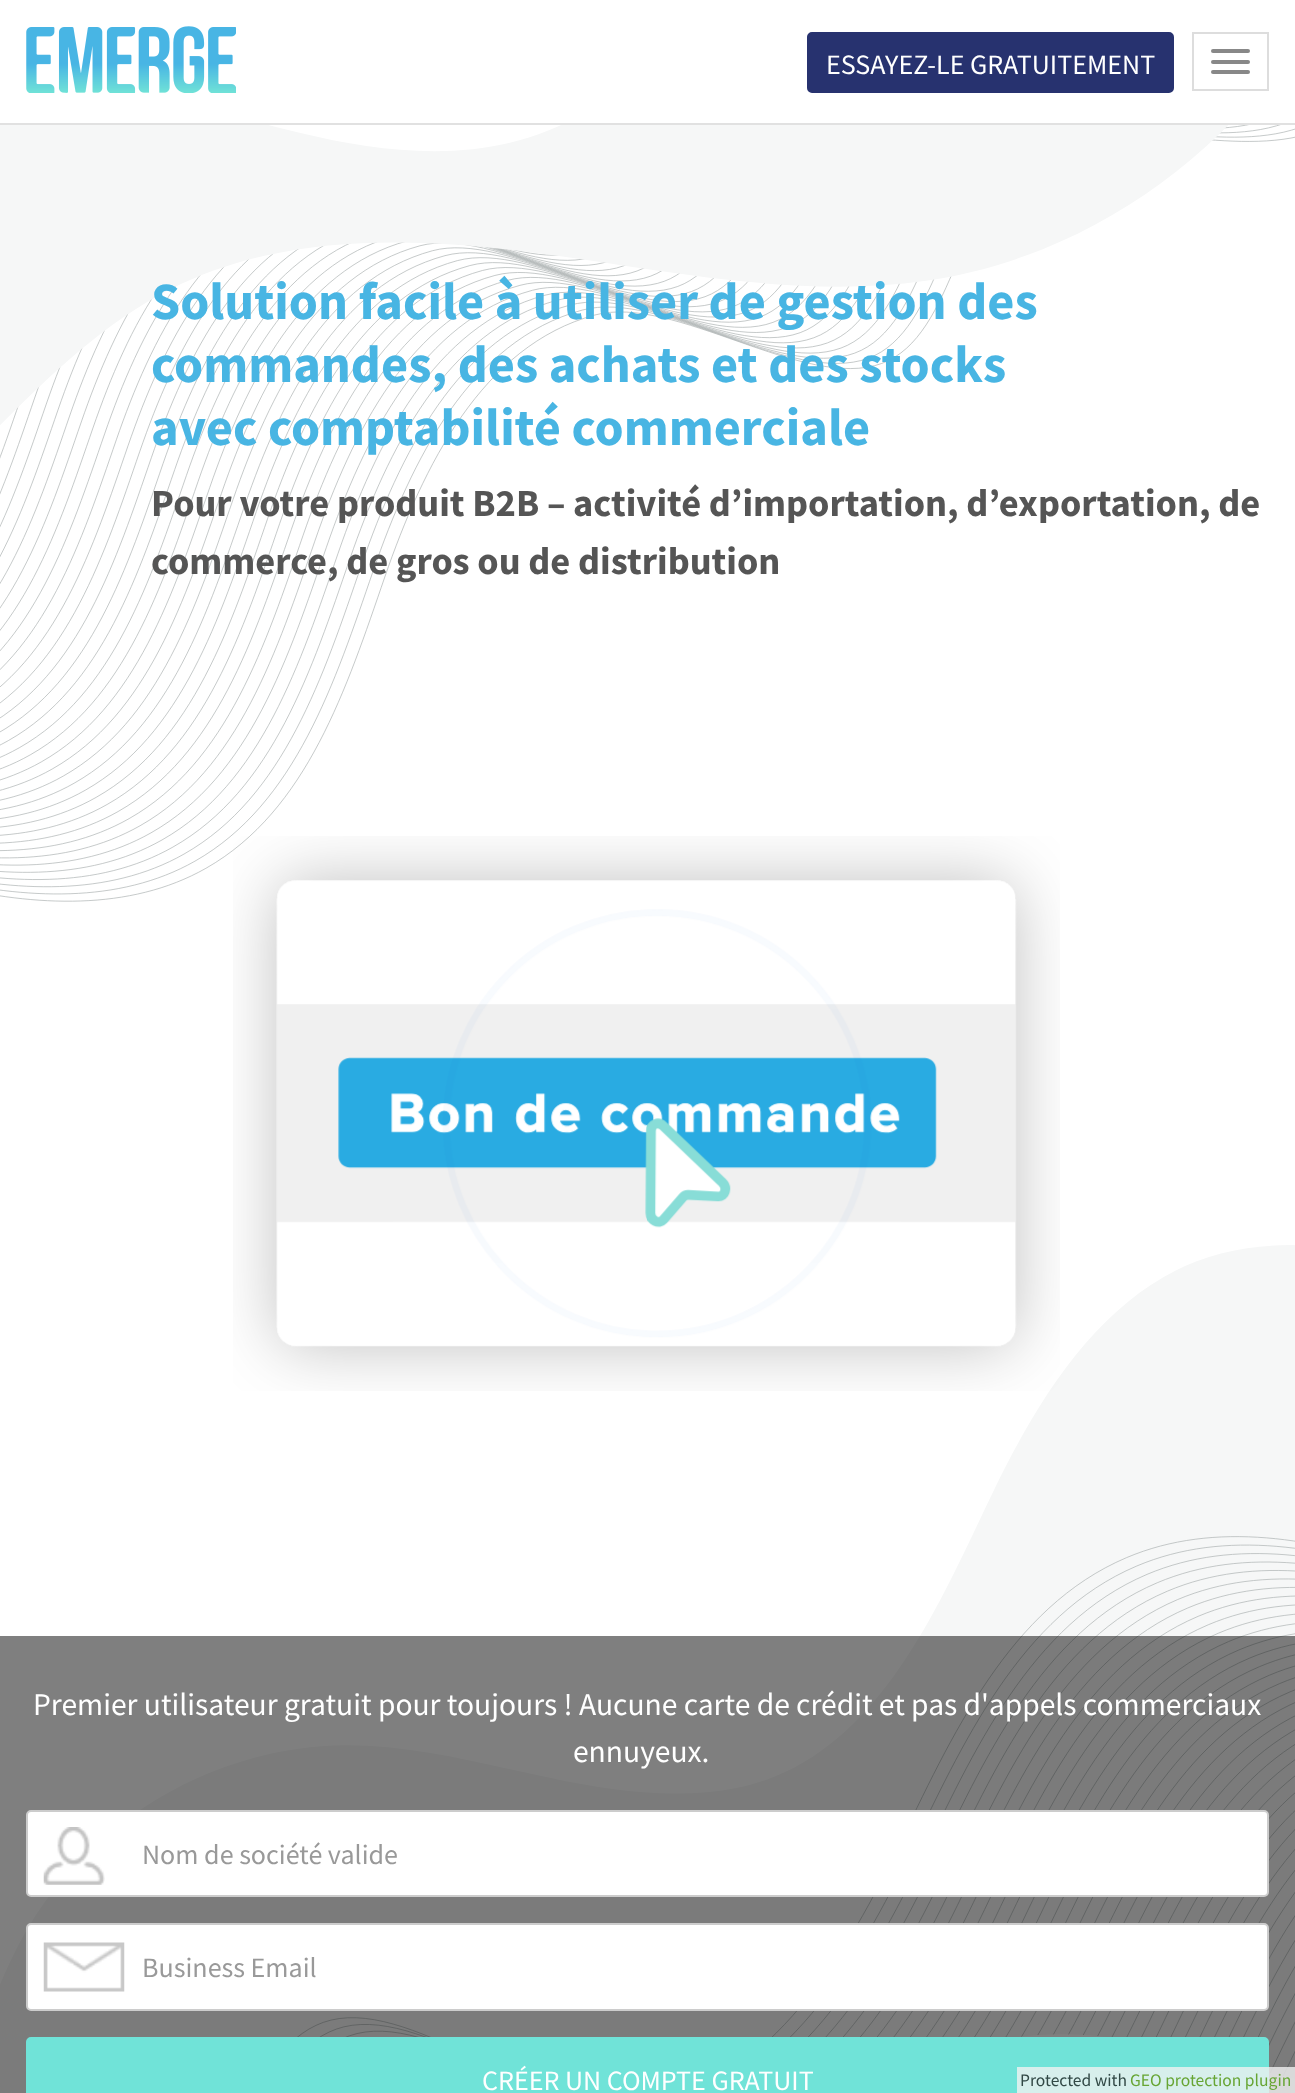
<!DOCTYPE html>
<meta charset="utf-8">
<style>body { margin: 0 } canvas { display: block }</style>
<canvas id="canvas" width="1295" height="2093"></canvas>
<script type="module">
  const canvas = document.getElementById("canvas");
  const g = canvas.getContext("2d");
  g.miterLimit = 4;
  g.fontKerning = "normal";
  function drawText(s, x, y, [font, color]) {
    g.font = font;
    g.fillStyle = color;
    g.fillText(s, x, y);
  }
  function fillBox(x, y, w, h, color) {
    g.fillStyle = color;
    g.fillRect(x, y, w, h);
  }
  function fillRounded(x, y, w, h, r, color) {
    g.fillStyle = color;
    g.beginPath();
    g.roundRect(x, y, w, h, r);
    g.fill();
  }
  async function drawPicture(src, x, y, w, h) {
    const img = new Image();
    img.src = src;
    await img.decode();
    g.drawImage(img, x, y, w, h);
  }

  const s1 = ["28px Source Sans Pro", "#FFFFFF"];
  const s2 = ["bold 52.5px Source Sans Pro", "#48B5E3"];
  const s3 = ["bold 38.5px Source Sans Pro", "#555555"];
  const s4 = ["31.5px Source Sans Pro", "#FFFFFF"];
  const s5 = ["28px Source Sans Pro", "#999999"];
  const s6 = ["17.5px Source Sans Pro", "#324946"];
  const s7 = ["17.5px Source Sans Pro", "#67A534"];

  fillBox(0, 0, 1295, 2093, "#FFFFFF");
  fillBox(0, 123, 1295, 2, "#E1E1E1");
  await drawPicture("pic1.png", 26, 26, 210, 67);
  g.fillStyle = "#27326F";
  g.beginPath();
  g.roundRect(808, 33, 365, 59, 4);
  g.fill();
  g.strokeStyle = "#27326F";
  g.lineWidth = 2;
  g.stroke();
  drawText("ESSAYEZ-LE GRATUITEMENT", 826, 74, s1);
  g.strokeStyle = "#DDDDDD";
  g.strokeRect(1193, 33, 75, 57);
  fillRounded(1211, 49, 39, 4, 2, "#888888");
  fillRounded(1211, 60, 39, 4, 2, "#888888");
  fillRounded(1211, 70, 39, 4, 2, "#888888");
  await drawPicture("pic2.png", 0, 125, 1295, 1968);
  drawText("Solution facile à utiliser de gestion des", 151, 319, s2);
  drawText("commandes, des achats et des stocks", 151, 382, s2);
  drawText("avec comptabilité commerciale", 151, 445, s2);
  drawText("Pour votre produit B2B – activité d’importation, d’exportation, de", 151, 516, s3);
  drawText("commerce, de gros ou de distribution", 151, 574, s3);
  await drawPicture("pic3.png", 233, 836, 827, 555);
  fillBox(0, 1636, 1295, 457, "rgba(0, 0, 0, 0.5)");
  drawText("Premier utilisateur gratuit pour toujours ! Aucune carte de crédit et pas d'appels commerciaux", 33, 1715, s4);
  drawText("ennuyeux.", 573, 1762, s4);
  g.beginPath();
  g.roundRect(27, 1811, 1241, 85, 4);
  g.fill();
  g.strokeStyle = "#CCCCCC";
  g.stroke();
  await drawPicture("pic4.png", 43, 1827, 62, 58);
  drawText("Nom de société valide", 142, 1864, s5);
  g.fillStyle = "#FFFFFF";
  g.beginPath();
  g.roundRect(27, 1924, 1241, 86, 4);
  g.fill();
  g.stroke();
  await drawPicture("pic5.png", 43, 1942, 82, 50);
  drawText("Business Email", 142, 1977, s5);
  g.fillStyle = "#70E3D8";
  g.beginPath();
  g.roundRect(27, 2038, 1241, 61, 4);
  g.fill();
  g.strokeStyle = "#70E3D8";
  g.stroke();
  drawText("CRÉER UN COMPTE GRATUIT", 482, 2090, s1);
  fillBox(1017, 2067, 278, 26, "rgba(241, 241, 241, 0.8)");
  drawText("Protected with", 1020, 2086, s6);
  drawText("GEO protection plugin", 1130, 2086, s7);
</script>
